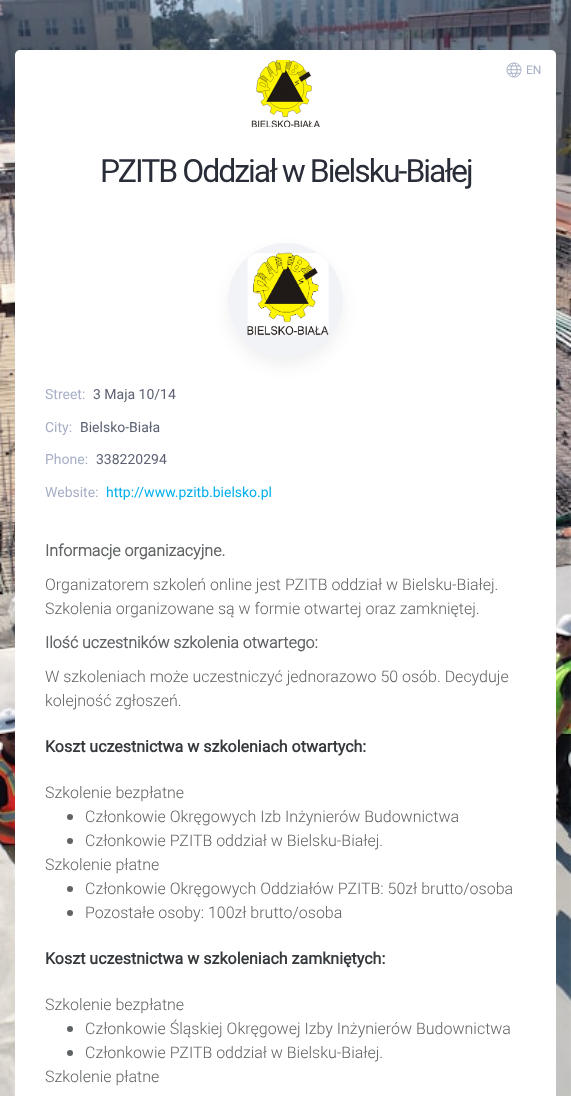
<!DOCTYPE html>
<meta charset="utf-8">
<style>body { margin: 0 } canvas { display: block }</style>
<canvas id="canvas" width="571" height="1096"></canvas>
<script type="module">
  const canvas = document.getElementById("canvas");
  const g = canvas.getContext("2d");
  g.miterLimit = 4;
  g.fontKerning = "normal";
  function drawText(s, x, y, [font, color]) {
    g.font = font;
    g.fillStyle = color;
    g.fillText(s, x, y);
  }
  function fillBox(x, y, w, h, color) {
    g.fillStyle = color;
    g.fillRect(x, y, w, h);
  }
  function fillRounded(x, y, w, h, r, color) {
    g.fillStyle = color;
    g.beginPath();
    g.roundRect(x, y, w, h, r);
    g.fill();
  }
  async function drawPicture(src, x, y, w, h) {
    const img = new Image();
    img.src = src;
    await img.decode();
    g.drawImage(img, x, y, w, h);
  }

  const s1 = ["12px Roboto", "#A7AFC6"];
  const s2 = ["32px Roboto", "#292D38"];
  const s3 = ["14px Roboto", "#A7AFC6"];
  const s4 = ["14px Roboto", "#5C6273"];
  const s5 = ["14px Roboto", "#00AFEC"];
  const s6 = ["bold 16px Roboto", "#606365"];
  const s7 = ["300 16px Roboto", "#606365"];
  const s8 = ["bold 16px 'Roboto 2'", "#363A3D"];

  fillBox(0, 0, 571, 1096, "#FFFFFF");
  await drawPicture("pic1.png", 0, 0, 571, 1096);
  fillRounded(15, 50, 541, 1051, 5, "#FFFFFF");
  await drawPicture("pic2.png", 506, 62, 16, 16);
  drawText("EN", 526, 74, s1);
  await drawPicture("pic3.png", 251, 60, 69, 67);
  g.letterSpacing = "-2px";
  drawText("PZITB Oddział w Bielsku-Białej", 100, 182, s2);
  g.fillStyle = "rgba(45, 49, 60, 0.07)";
  g.filter = "blur(8px)";
  g.beginPath();
  g.roundRect(228, 251, 115, 115, 57.5);
  g.fill();
  g.filter = "none";
  g.fillStyle = "#F2F3F7";
  g.beginPath();
  g.arc(285.5, 300.5, 57.5, 0, Math.PI * 2);
  g.fill();
  await drawPicture("pic4.png", 247, 252, 82, 84);
  g.letterSpacing = "0px";
  drawText("Street:", 45, 399, s3);
  drawText("3 Maja 10/14", 93, 399, s4);
  drawText("City:", 45, 432, s3);
  drawText("Bielsko-Biała", 80, 432, s4);
  drawText("Phone:", 45, 464, s3);
  drawText("338220294", 96, 464, s4);
  drawText("Website:", 45, 497, s3);
  drawText("http://www.pzitb.bielsko.pl", 106, 497, s5);
  drawText("Informacje organizacyjne.", 45, 556, s6);
  drawText("Organizatorem szkoleń online jest PZITB oddział w Bielsku-Białej.", 45, 590, s7);
  drawText("Szkolenia organizowane są w formie otwartej oraz zamkniętej.", 45, 614, s7);
  drawText("Ilość uczestników szkolenia otwartego:", 45, 648, s6);
  drawText("W szkoleniach może uczestniczyć jednorazowo 50 osób. Decyduje", 45, 682, s7);
  drawText("kolejność zgłoszeń.", 45, 706, s7);
  drawText("Koszt uczestnictwa w szkoleniach otwartych:", 45, 752, s8);
  drawText("Szkolenie bezpłatne", 45, 798, s7);
  g.beginPath();
  g.arc(70, 817, 3, 0, Math.PI * 2);
  g.fill();
  drawText("Członkowie Okręgowych Izb Inżynierów Budownictwa", 85, 822, s7);
  g.beginPath();
  g.arc(70, 841, 3, 0, Math.PI * 2);
  g.fill();
  drawText("Członkowie PZITB oddział w Bielsku-Białej.", 85, 846, s7);
  drawText("Szkolenie płatne", 45, 870, s7);
  g.beginPath();
  g.arc(70, 889, 3, 0, Math.PI * 2);
  g.fill();
  drawText("Członkowie Okręgowych Oddziałów PZITB: 50zł brutto/osoba", 85, 894, s7);
  g.beginPath();
  g.arc(70, 913, 3, 0, Math.PI * 2);
  g.fill();
  drawText("Pozostałe osoby: 100zł brutto/osoba", 85, 918, s7);
  drawText("Koszt uczestnictwa w szkoleniach zamkniętych:", 45, 964, s8);
  drawText("Szkolenie bezpłatne", 45, 1010, s7);
  g.beginPath();
  g.arc(70, 1029, 3, 0, Math.PI * 2);
  g.fill();
  drawText("Członkowie Śląskiej Okręgowej Izby Inżynierów Budownictwa", 85, 1034, s7);
  g.beginPath();
  g.arc(70, 1053, 3, 0, Math.PI * 2);
  g.fill();
  drawText("Członkowie PZITB oddział w Bielsku-Białej.", 85, 1058, s7);
  drawText("Szkolenie płatne", 45, 1082, s7);
</script>
